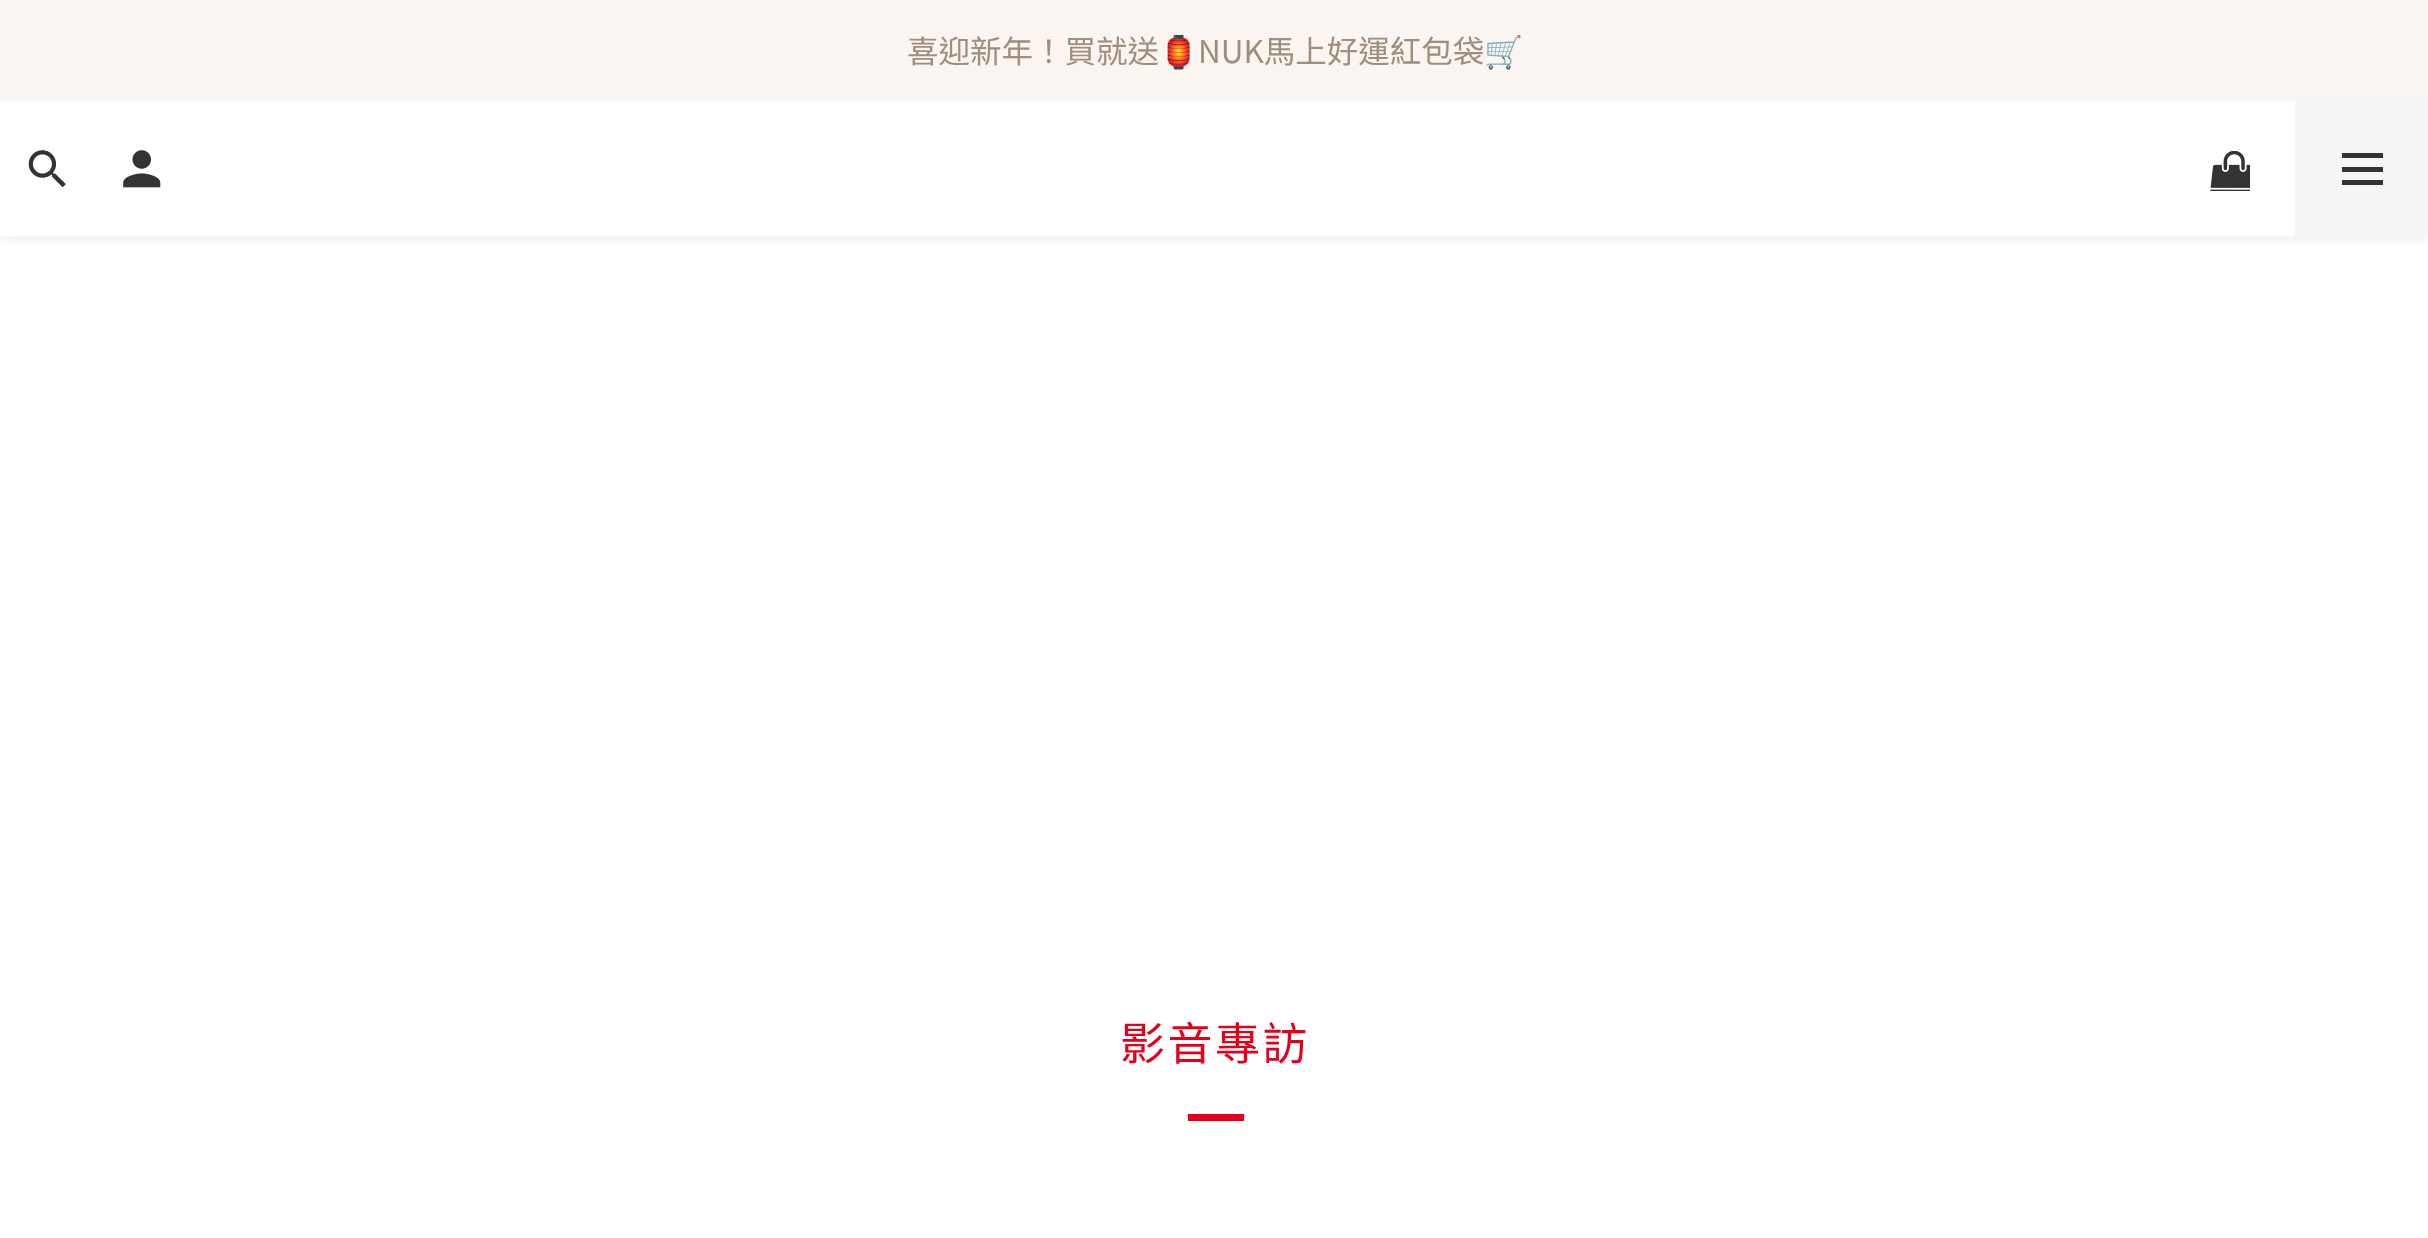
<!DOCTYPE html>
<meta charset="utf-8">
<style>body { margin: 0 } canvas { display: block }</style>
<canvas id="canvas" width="2428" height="1238"></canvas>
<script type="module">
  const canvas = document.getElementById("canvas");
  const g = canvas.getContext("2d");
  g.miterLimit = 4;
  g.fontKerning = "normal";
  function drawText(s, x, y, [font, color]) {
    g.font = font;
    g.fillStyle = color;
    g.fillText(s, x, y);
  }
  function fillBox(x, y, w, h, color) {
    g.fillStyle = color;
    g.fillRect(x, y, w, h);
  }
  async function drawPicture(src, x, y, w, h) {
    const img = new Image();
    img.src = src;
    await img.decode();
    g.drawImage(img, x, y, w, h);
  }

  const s1 = ["31.5px Noto Sans TC", "#9F8E7E"];
  const s2 = ["31.5px Noto Color Emoji", "#9F8E7E"];
  const s3 = ["45px Noto Sans TC", "#E2001A"];

  fillBox(0, 0, 2428, 1238, "#FFFFFF");
  fillBox(0, 0, 2428, 101, "#FAF5F0");
  drawText("喜迎新年！買就送", 907, 63, s1);
  drawText("🏮", 1159, 63, s2);
  drawText("NUK馬上好運紅包袋", 1198, 63, s1);
  drawText("🛒", 1484, 63, s2);
  g.save();
  g.beginPath();
  g.rect(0, 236, 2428, 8);
  g.clip();
  g.fillStyle = "rgba(0, 0, 0, 0.06)";
  g.filter = "blur(7px)";
  g.beginPath();
  g.rect(0, 106, 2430, 135);
  g.fill();
  g.filter = "none";
  g.restore();
  await drawPicture("pic1.png", 28, 150, 38, 38);
  await drawPicture("pic2.png", 123, 150, 38, 38);
  await drawPicture("pic3.png", 2210, 151, 40, 40);
  fillBox(2295, 101, 133, 135, "#F5F5F5");
  fillBox(2342, 167, 41, 5, "#333333");
  fillBox(2342, 153, 41, 5, "#333333");
  fillBox(2342, 180, 41, 5, "#333333");
  g.letterSpacing = "2.5px";
  drawText("影音專訪", 1120, 1060, s3);
  fillBox(1188, 1114, 56, 7, "#E2001A");
</script>
